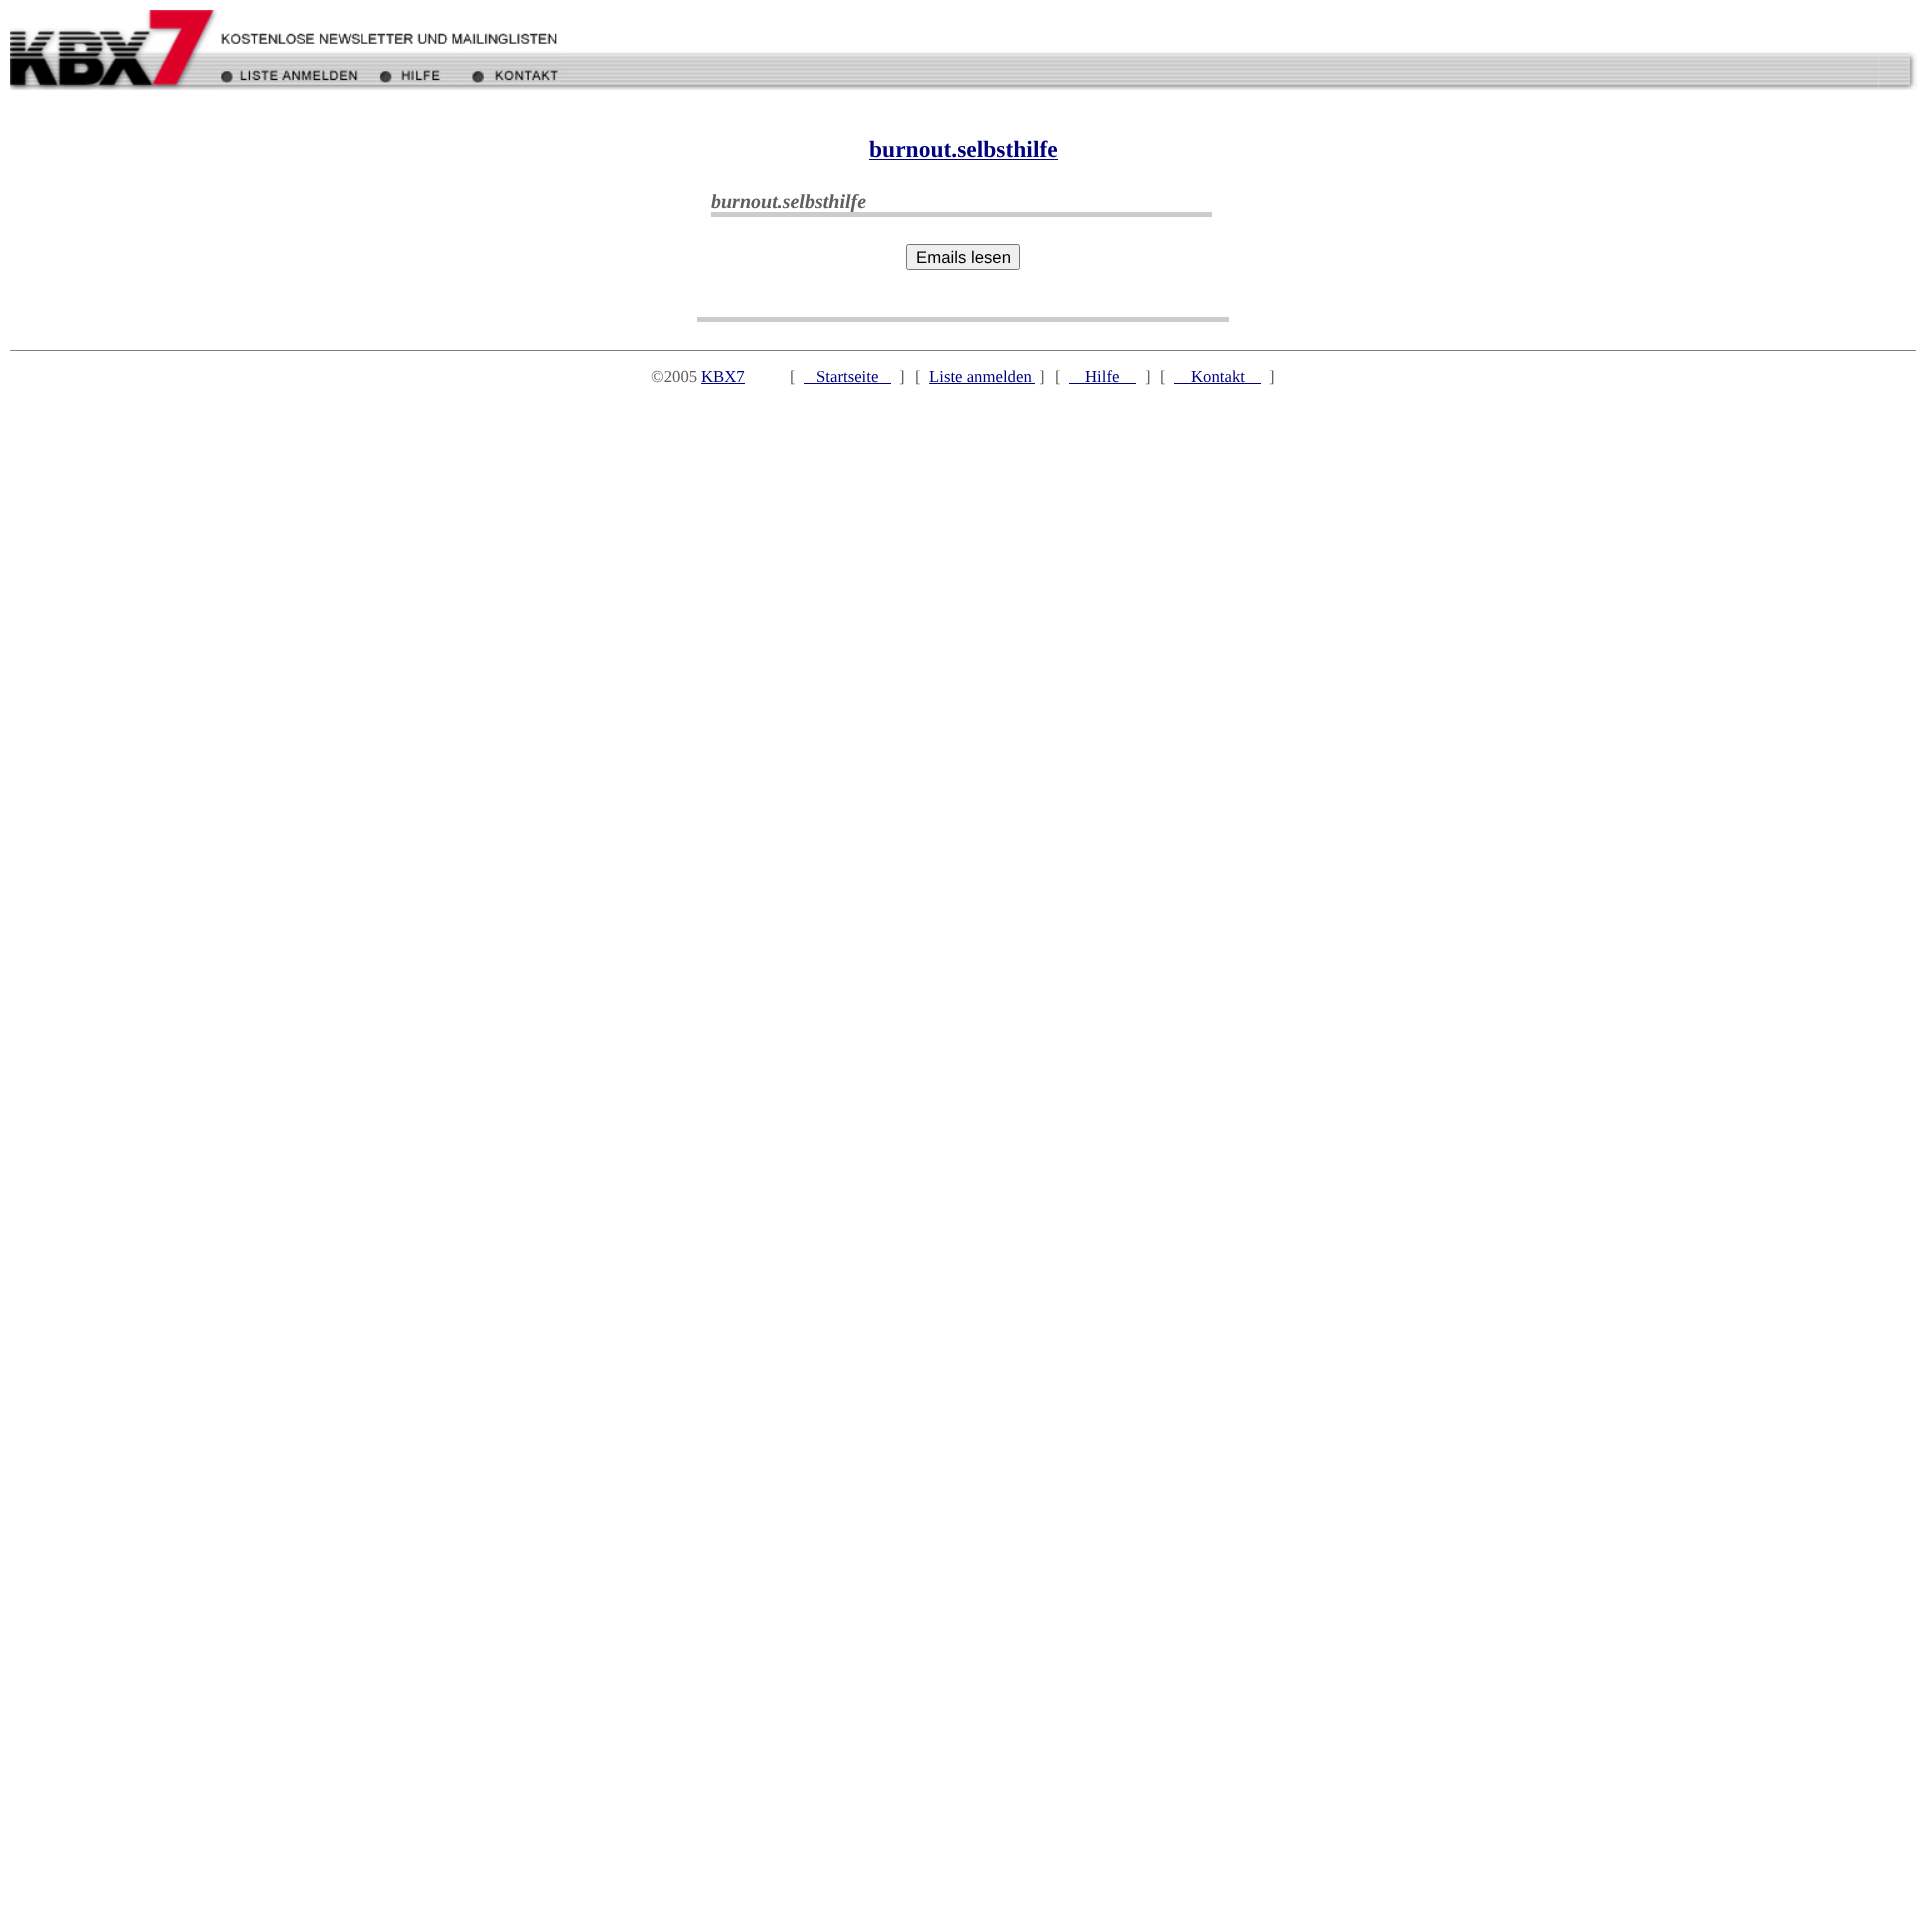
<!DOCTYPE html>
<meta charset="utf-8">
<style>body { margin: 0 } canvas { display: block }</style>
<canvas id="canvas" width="1926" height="1906"></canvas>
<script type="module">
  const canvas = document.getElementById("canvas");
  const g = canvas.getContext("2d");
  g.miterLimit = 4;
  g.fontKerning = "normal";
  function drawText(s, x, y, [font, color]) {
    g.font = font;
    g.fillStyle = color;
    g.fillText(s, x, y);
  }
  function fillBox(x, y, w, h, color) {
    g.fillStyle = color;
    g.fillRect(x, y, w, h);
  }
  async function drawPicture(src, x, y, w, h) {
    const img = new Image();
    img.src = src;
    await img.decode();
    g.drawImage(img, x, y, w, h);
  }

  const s1 = ["bold 23.5px Liberation Serif", "#000080"];
  const s2 = ["italic bold 20px Liberation Serif", "#606060"];
  const s3 = ["16.75px Liberation Sans", "#000000"];
  const s4 = ["16.75px Liberation Serif", "#606060"];
  const s5 = ["16.75px Liberation Serif", "#000080"];

  fillBox(0, 0, 1926, 1906, "#FFFFFF");
  await drawPicture("pic1.png", 218, 52, 1661, 38);
  await drawPicture("pic2.png", 10, 10, 208, 80);
  await drawPicture("pic3.png", 221, 33, 336, 11);
  await drawPicture("pic4.png", 219, 51, 151, 32);
  await drawPicture("pic5.png", 370, 51, 86, 32);
  await drawPicture("pic6.png", 457, 51, 106, 32);
  await drawPicture("pic7.png", 1878, 52, 39, 38);
  await drawPicture("pic8.png", 1905, 51, 12, 39);
  drawText("burnout.selbsthilfe", 869, 157, s1);
  fillBox(869, 159, 189, 1, "#000080");
  drawText("burnout.selbsthilfe", 711, 208, s2);
  fillBox(711, 212, 501, 5, "#CCCCCC");
  g.fillStyle = "#EFEFEF";
  g.beginPath();
  g.roundRect(906.5, 244.5, 113, 25, 2);
  g.fill();
  g.strokeStyle = "#767676";
  g.stroke();
  drawText("Emails lesen", 916, 263, s3);
  fillBox(697, 317, 532, 5, "#CCCCCC");
  fillBox(10, 350, 1906, 1, "#808080");
  drawText("©2005", 651, 382, s4);
  drawText("KBX7", 701, 382, s5);
  fillBox(701, 383, 44, 1, "#000080");
  drawText("[", 790, 382, s4);
  drawText("Startseite", 816, 382, s5);
  fillBox(804, 383, 87, 1, "#000080");
  drawText("]", 899, 382, s4);
  drawText("[", 915, 382, s4);
  drawText("Liste anmelden", 929, 382, s5);
  fillBox(929, 383, 106, 1, "#000080");
  drawText("]", 1039, 382, s4);
  drawText("[", 1055, 382, s4);
  drawText("Hilfe", 1085, 382, s5);
  fillBox(1069, 383, 67, 1, "#000080");
  drawText("]", 1145, 382, s4);
  drawText("[", 1160, 382, s4);
  drawText("Kontakt", 1191, 382, s5);
  fillBox(1174, 383, 87, 1, "#000080");
  drawText("]", 1269, 382, s4);
</script>
